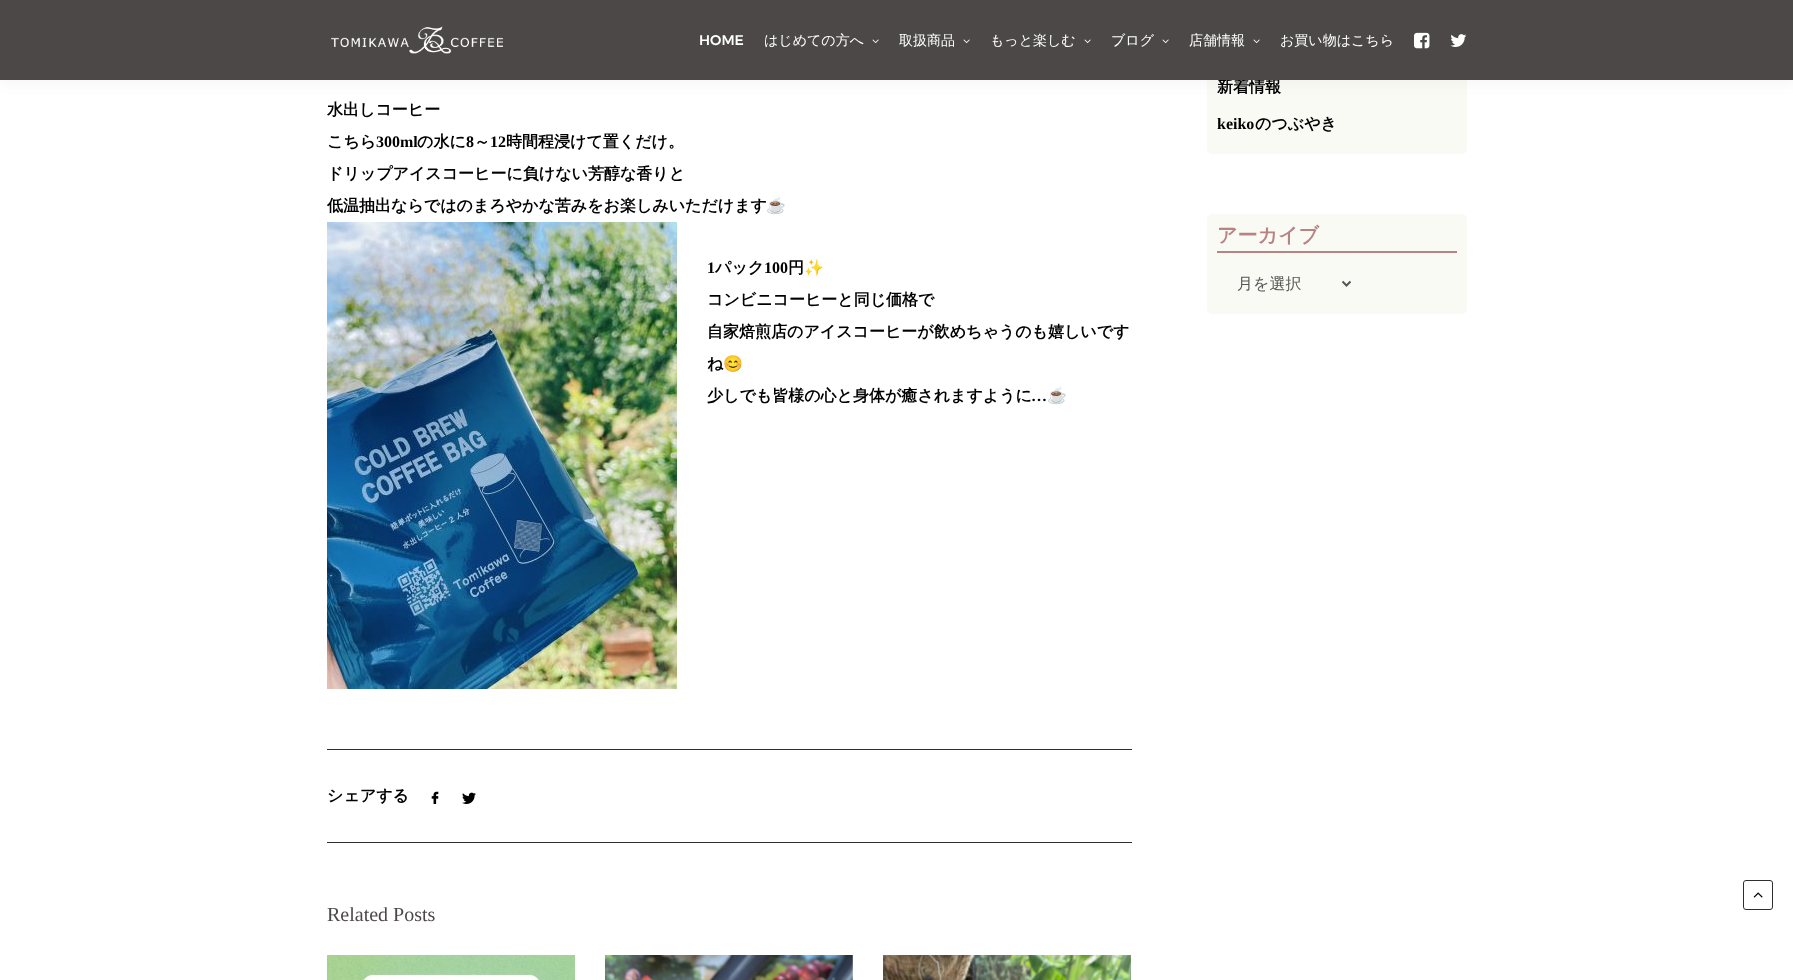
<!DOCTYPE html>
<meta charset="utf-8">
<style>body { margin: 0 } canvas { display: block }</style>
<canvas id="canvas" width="1793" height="980"></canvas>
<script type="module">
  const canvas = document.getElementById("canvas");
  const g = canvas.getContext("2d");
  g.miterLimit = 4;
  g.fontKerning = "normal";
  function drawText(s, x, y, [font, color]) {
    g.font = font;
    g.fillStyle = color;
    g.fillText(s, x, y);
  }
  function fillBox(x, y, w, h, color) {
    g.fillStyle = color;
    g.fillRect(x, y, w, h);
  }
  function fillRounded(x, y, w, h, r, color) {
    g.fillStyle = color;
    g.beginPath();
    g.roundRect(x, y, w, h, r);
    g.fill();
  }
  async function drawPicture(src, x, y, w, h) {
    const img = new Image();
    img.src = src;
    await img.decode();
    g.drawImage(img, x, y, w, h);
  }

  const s1 = ["bold 16px WenQuanYi Zen Hei", "#000000"];
  const s2 = ["500 14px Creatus", "#FFFFFF"];
  const s3 = ["500 14px WenQuanYi Zen Hei", "#FFFFFF"];
  const s4 = ["bold 16px Liberation Serif", "#000000"];
  const s5 = ["bold 16px Noto Color Emoji", "#000000"];
  const s6 = ["20px Liberation Serif", "#4C4848"];
  const s7 = ["bold 20px WenQuanYi Zen Hei", "#B88383"];
  const s8 = ["500 16px WenQuanYi Zen Hei", "#555555"];

  fillBox(0, 0, 1793, 980, "#FFFFFF");
  fillRounded(1207, 20, 260, 134, 5, "#FAFAF5");
  g.fillStyle = "rgba(0, 0, 0, 0.05)";
  g.filter = "blur(9px)";
  g.beginPath();
  g.rect(-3, 0, 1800, 80);
  g.fill();
  g.filter = "none";
  drawText("新着情報", 1217, 92, s1);
  fillBox(0, 0, 1793, 80, "#4C4848");
  await drawPicture("pic1.png", 331, 26, 172, 28);
  drawText("HOME", 699, 45, s2);
  drawText("はじめての方へ", 764, 45, s3);
  await drawPicture("pic2.png", 872, 39, 7, 5);
  drawText("取扱商品", 899, 45, s3);
  await drawPicture("pic2.png", 963, 39, 7, 5);
  drawText("もっと楽しむ", 990, 45, s3);
  await drawPicture("pic2.png", 1084, 39, 7, 5);
  drawText("ブログ", 1111, 45, s3);
  await drawPicture("pic2.png", 1162, 39, 7, 5);
  drawText("店舗情報", 1189, 45, s3);
  await drawPicture("pic2.png", 1253, 39, 7, 5);
  drawText("お買い物はこちら", 1280, 45, s3);
  await drawPicture("pic3.png", 1414, 32, 16, 17);
  await drawPicture("pic4.png", 1450, 34, 17, 13);
  drawText("水出しコーヒー", 327, 115, s1);
  drawText("こちら", 327, 147, s1);
  drawText("300ml", 376, 147, s4);
  drawText("の水に", 417, 147, s1);
  drawText("8", 466, 147, s4);
  drawText("～", 474, 147, s1);
  drawText("12", 490, 147, s4);
  drawText("時間程浸けて置くだけ。", 506, 147, s1);
  drawText("ドリップアイスコーヒーに負けない芳醇な香りと", 327, 179, s1);
  drawText("低温抽出ならではのまろやかな苦みをお楽しみいただけます", 327, 211, s1);
  drawText("☕", 766, 211, s5);
  await drawPicture("pic5.png", 327, 222, 350, 467);
  drawText("1", 707, 273, s4);
  drawText("パック", 715, 273, s1);
  drawText("100", 764, 273, s4);
  drawText("円", 788, 273, s1);
  drawText("✨", 804, 273, s5);
  drawText("コンビニコーヒーと同じ価格で", 707, 305, s1);
  drawText("自家焙煎店のアイスコーヒーが飲めちゃうのも嬉しいです", 707, 337, s1);
  drawText("ね", 707, 369, s1);
  drawText("😊", 723, 369, s5);
  drawText("少しでも皆様の心と身体が癒されますように", 707, 401, s1);
  drawText("…", 1031, 401, s4);
  drawText("☕", 1047, 401, s5);
  fillBox(327, 749, 805, 1, "#2C2E30");
  drawText("シェアする", 327, 801, s1);
  await drawPicture("pic6.png", 431, 791, 8, 13);
  await drawPicture("pic7.png", 462, 792, 14, 12);
  fillBox(327, 842, 805, 1, "#2C2E30");
  drawText("Related Posts", 327, 921, s6);
  await drawPicture("pic8.png", 327, 955, 248, 25);
  await drawPicture("pic9.png", 605, 955, 248, 25);
  await drawPicture("pic10.png", 883, 955, 248, 25);
  drawText("keiko", 1217, 129, s4);
  drawText("のつぶやき", 1255, 129, s1);
  fillRounded(1207, 214, 260, 100, 5, "#FAFAF5");
  fillBox(1217, 251, 240, 2, "#B88383");
  drawText("アーカイブ", 1217, 242, s7);
  g.beginPath();
  g.moveTo(1342.5, 281.5);
  g.lineTo(1346.5, 285.5);
  g.lineTo(1350.5, 281.5);
  g.strokeStyle = "#555555";
  g.lineWidth = 2;
  g.stroke();
  drawText("月を選択", 1237, 289, s8);
  g.beginPath();
  g.roundRect(1743.5, 880.5, 29, 29, 2.5);
  g.strokeStyle = "#2C2E30";
  g.lineWidth = 1;
  g.stroke();
  await drawPicture("pic11.png", 1753, 892, 10, 6);
</script>
